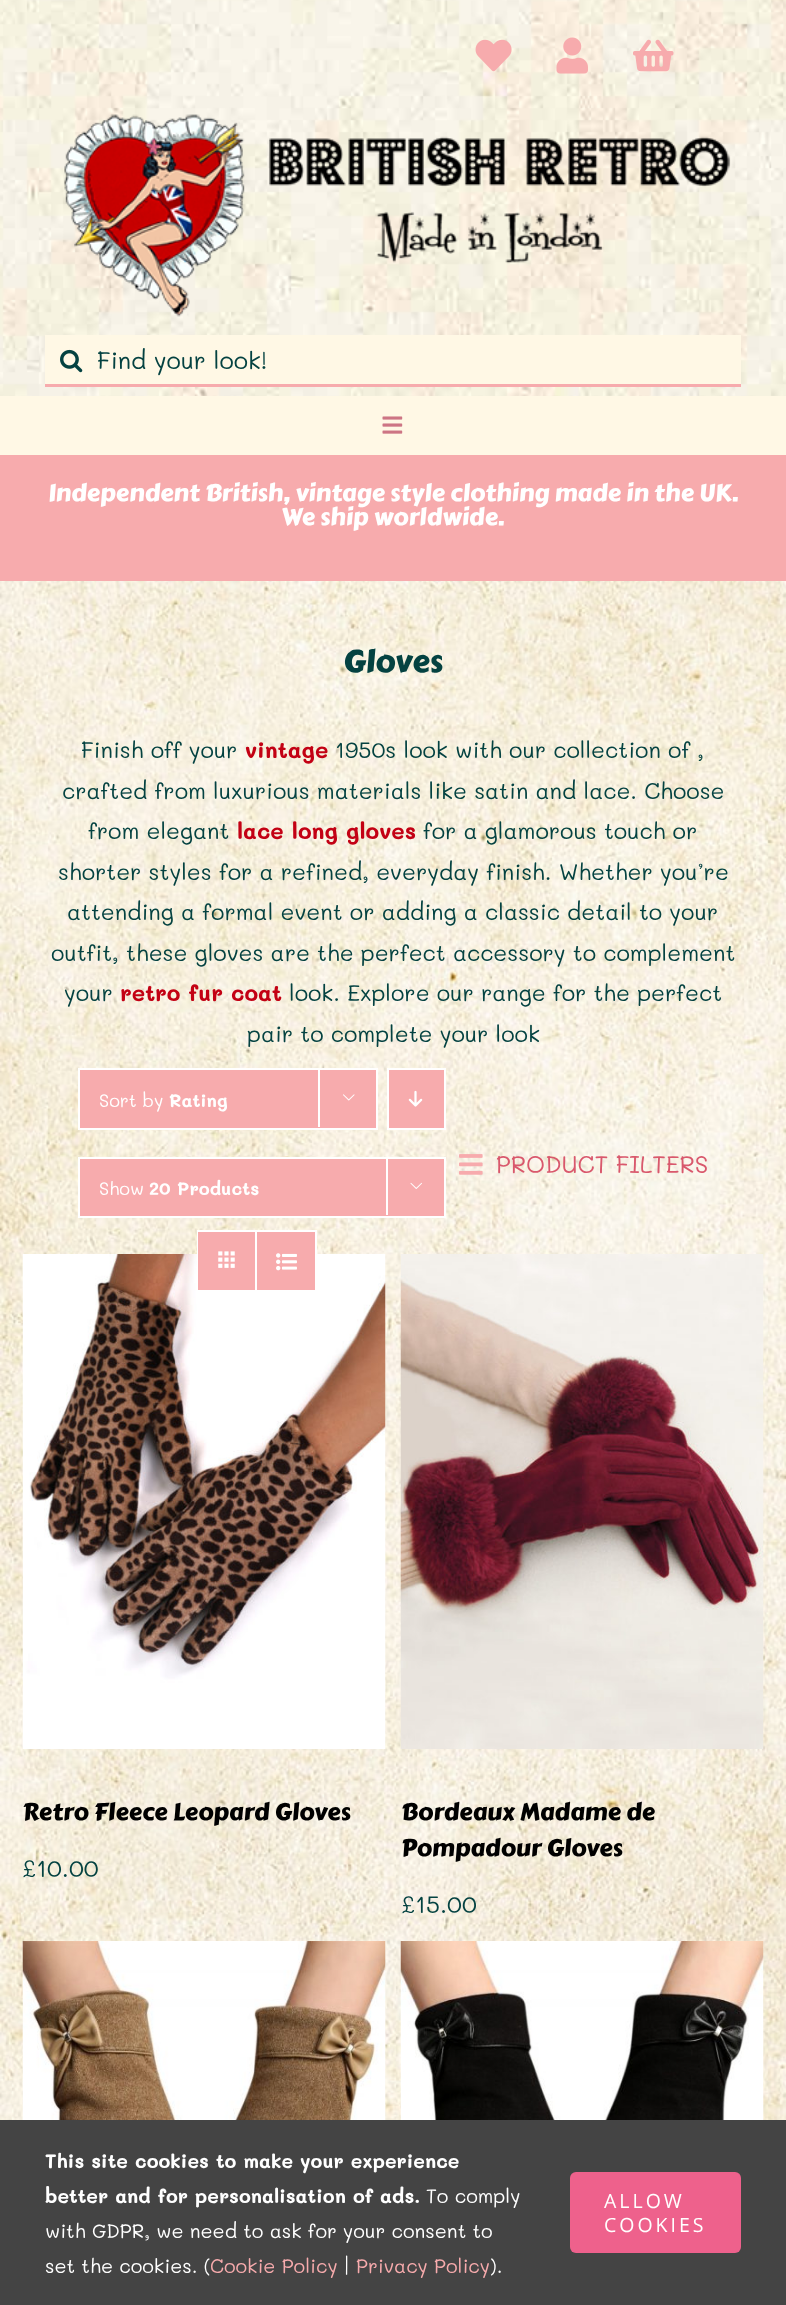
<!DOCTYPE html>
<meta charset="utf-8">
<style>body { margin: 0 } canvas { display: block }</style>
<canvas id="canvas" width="786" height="2305"></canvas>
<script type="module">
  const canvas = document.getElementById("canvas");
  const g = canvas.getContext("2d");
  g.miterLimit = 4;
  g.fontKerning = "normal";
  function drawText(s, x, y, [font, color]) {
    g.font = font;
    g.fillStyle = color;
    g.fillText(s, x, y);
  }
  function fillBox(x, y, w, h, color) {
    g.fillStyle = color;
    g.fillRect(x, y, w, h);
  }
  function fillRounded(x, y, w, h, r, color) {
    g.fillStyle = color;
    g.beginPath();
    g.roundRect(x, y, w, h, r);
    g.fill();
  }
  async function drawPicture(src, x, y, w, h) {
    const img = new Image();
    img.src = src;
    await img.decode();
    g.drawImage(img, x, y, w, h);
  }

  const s1 = ["24px Mali", "#044241"];
  const s2 = ["24px Carter One", "#FFFFFF"];
  const s3 = ["31.5px Carter One", "#044241"];
  const s4 = ["22.5px Mali", "#044241"];
  const s5 = ["bold 22.5px Mali", "#C30114"];
  const s6 = ["18px Mali", "#FFFFFF"];
  const s7 = ["bold 18px Mali", "#FFFFFF"];
  const s8 = ["24px Mali", "#D9586C"];
  const s9 = ["24px Carter One", "#000000"];
  const s10 = ["bold 19.5px Mali", "#FFFFFF"];
  const s11 = ["19.5px Mali", "#FFFFFF"];
  const s12 = ["19.5px Mali", "#F7ABAD"];
  const s13 = ["19.5px Open Sans", "#FFFFFF"];

  fillBox(0, 0, 786, 2305, "#FFFFFF");
  await drawPicture("pic1.png", 0, 0, 786, 396);
  await drawPicture("pic2.png", 475, 39, 37, 33);
  await drawPicture("pic3.png", 556, 37, 32, 37);
  await drawPicture("pic4.png", 633, 39, 41, 33);
  await drawPicture("pic5.png", 64, 114, 667, 203);
  fillBox(45, 335, 696, 49, "#FFF8E5");
  await drawPicture("pic6.png", 60, 349, 23, 24);
  fillBox(45, 384, 696, 3, "#F7ABAD");
  drawText("Find your look!", 97, 369, s1);
  fillBox(0, 396, 786, 59, "#FFF8E5");
  await drawPicture("pic7.png", 382, 416, 21, 18);
  fillBox(0, 455, 786, 126, "#F7ABAD");
  drawText("Independent British, vintage style clothing made in the UK.", 48, 501, s2);
  drawText("We ship worldwide.", 281, 525, s2);
  await drawPicture("pic8.png", 0, 581, 786, 1539);
  drawText("Gloves", 343, 672, s3);
  drawText("Finish off your", 81, 758, s4);
  drawText("vintage", 245, 758, s5);
  drawText("1950s look with our collection of ,", 335, 758, s4);
  drawText("crafted from luxurious materials like satin and lace. Choose", 62, 799, s4);
  drawText("from elegant", 88, 839, s4);
  drawText("lace long gloves", 237, 839, s5);
  drawText("for a glamorous touch or", 423, 839, s4);
  drawText("shorter styles for a refined, everyday finish. Whether you’re", 58, 880, s4);
  drawText("attending a formal event or adding a classic detail to your", 67, 920, s4);
  drawText("outfit, these gloves are the perfect accessory to complement", 51, 961, s4);
  drawText("your", 64, 1001, s4);
  drawText("retro fur coat", 120, 1001, s5);
  drawText("look. Explore our range for the perfect", 289, 1001, s4);
  drawText("pair to complete your look", 247, 1042, s4);
  g.fillStyle = "#F7ABAD";
  g.beginPath();
  g.rect(79, 1069, 298, 60);
  g.fill();
  g.strokeStyle = "#FFFFFF";
  g.lineWidth = 2;
  g.stroke();
  drawText("Sort by", 99, 1107, s6);
  drawText("Rating", 169, 1107, s7);
  fillBox(318, 1068, 2, 59, "#FFFFFF");
  await drawPicture("pic9.png", 343, 1094, 12, 7);
  g.fillStyle = "#F7ABAD";
  g.beginPath();
  g.rect(388, 1069, 57, 60);
  g.fill();
  g.stroke();
  await drawPicture("pic10.png", 408, 1090, 15, 17);
  g.beginPath();
  g.rect(79, 1158, 366, 59);
  g.fill();
  g.stroke();
  drawText("Show", 99, 1195, s6);
  drawText("20 Products", 149, 1195, s7);
  fillBox(386, 1157, 2, 58, "#FFFFFF");
  await drawPicture("pic11.png", 410, 1182, 12, 7);
  await drawPicture("pic15.png", 22, 1254, 364, 495);
  g.strokeRect(198, 1231, 118, 60);
  fillBox(198, 1232, 57, 58, "#F7ABAD");
  fillBox(255, 1232, 2, 22, "#FFFFFF");
  await drawPicture("pic12.png", 218, 1251, 17, 17);
  fillBox(257, 1232, 58, 58, "#F7ABAD");
  await drawPicture("pic13.png", 276, 1253, 21, 18);
  await drawPicture("pic14.png", 459, 1154, 24, 21);
  drawText("PRODUCT FILTERS", 496, 1173, s8);
  drawText("Retro Fleece Leopard Gloves", 22, 1820, s9);
  drawText("£10.00", 22, 1877, s1);
  await drawPicture("pic16.png", 400, 1254, 364, 495);
  drawText("Bordeaux Madame de", 401, 1820, s9);
  drawText("Pompadour Gloves", 401, 1856, s9);
  drawText("£15.00", 401, 1913, s1);
  await drawPicture("pic17.png", 22, 1941, 364, 179);
  await drawPicture("pic18.png", 400, 1941, 364, 179);
  fillBox(0, 2120, 786, 185, "#444444");
  drawText("This site cookies to make your experience", 45, 2168, s10);
  drawText("better and for personalisation of ads.", 45, 2203, s10);
  drawText("To comply", 426, 2203, s11);
  drawText("with GDPR, we need to ask for your consent to", 45, 2238, s11);
  drawText("set the cookies. (", 45, 2273, s11);
  drawText("Cookie Policy", 210, 2273, s12);
  drawText("|", 344, 2273, s11);
  drawText("Privacy Policy", 356, 2273, s12);
  drawText(").", 490, 2273, s11);
  fillRounded(570, 2172, 171, 81, 6, "#EE618C");
  g.letterSpacing = "3px";
  drawText("ALLOW", 604, 2208, s13);
  drawText("COOKIES", 604, 2232, s13);
</script>
